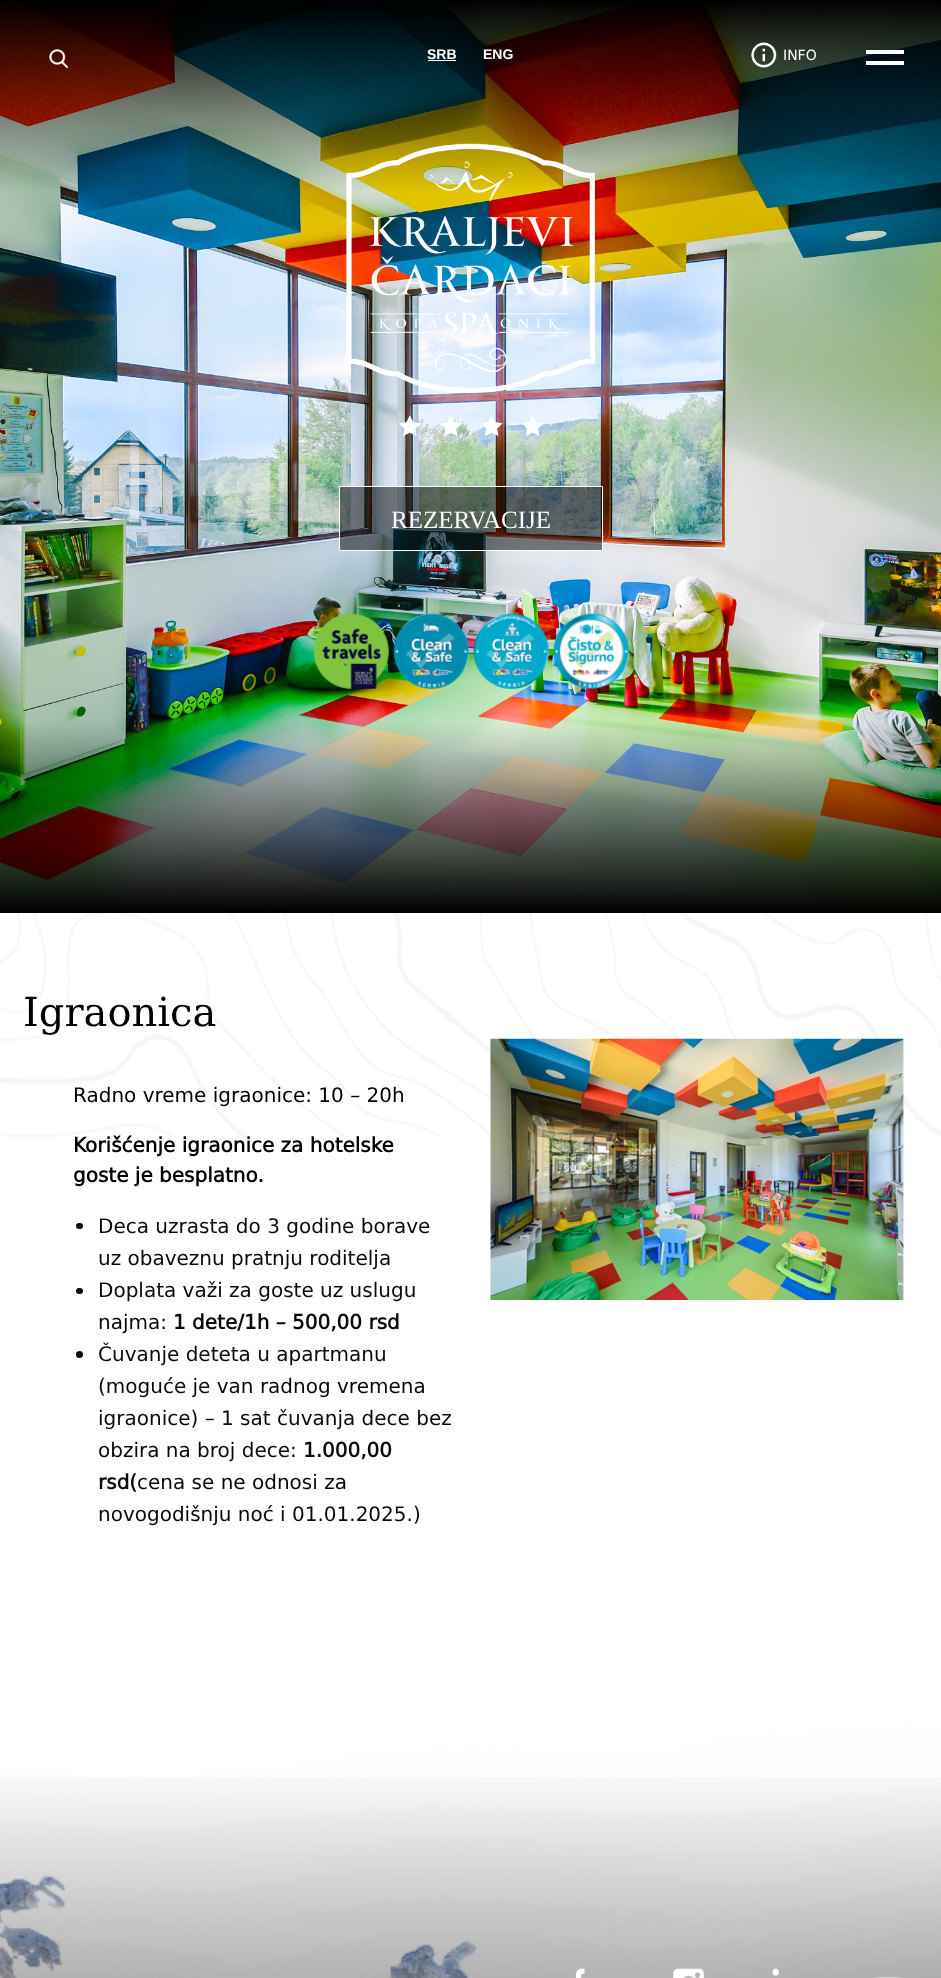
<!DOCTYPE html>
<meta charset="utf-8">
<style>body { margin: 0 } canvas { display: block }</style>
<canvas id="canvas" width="941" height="1978"></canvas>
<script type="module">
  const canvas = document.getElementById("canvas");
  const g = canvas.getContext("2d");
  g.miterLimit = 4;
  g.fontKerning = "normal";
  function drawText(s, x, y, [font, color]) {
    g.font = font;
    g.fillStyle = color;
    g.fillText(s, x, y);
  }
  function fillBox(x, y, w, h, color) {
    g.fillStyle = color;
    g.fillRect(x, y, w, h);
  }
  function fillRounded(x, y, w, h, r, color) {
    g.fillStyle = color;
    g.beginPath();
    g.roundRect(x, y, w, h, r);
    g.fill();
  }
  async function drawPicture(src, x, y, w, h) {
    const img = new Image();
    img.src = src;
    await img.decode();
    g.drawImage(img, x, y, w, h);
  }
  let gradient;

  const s1 = ["bold 14px Liberation Sans", "#FEFEFE"];
  const s2 = ["40px DejaVu Serif", "#000000"];
  const s3 = ["20px DejaVu Sans", "#000000"];
  const s4 = ["bold 20px DejaVu Sans", "#000000"];
  const s5 = ["20px DejaVu Sans", "#0A0A0A"];
  const s6 = ["bold 20px DejaVu Sans", "#0A0A0A"];
  const s7 = ["14px DejaVu Sans", "#FEFEFE"];
  const s8 = ["25px Liberation Serif", "#FEFEFE"];

  fillBox(0, 0, 941, 1978, "#FFFFFF");
  await drawPicture("pic1.png", 0, 913, 941, 225);
  await drawPicture("pic2.png", 0, 1137, 941, 841);
  await drawPicture("pic11.png", 0, 1, 941, 911);
  gradient = g.createLinearGradient(471, 0, 471, 913);
  gradient.addColorStop(0, "#000000");
  gradient.addColorStop(0.21, "rgba(0, 0, 0, 0)");
  gradient.addColorStop(0.79, "rgba(0, 0, 0, 0)");
  gradient.addColorStop(1, "#000000");
  g.fillStyle = gradient;
  g.fillRect(0, 0, 941, 913);
  drawText("SRB", 427, 59, s1);
  fillBox(428, 60, 28, 1, "#FFFFFF");
  drawText("ENG", 483, 59, s1);
  drawText("Igraonica", 23, 1026, s2);
  drawText("Radno vreme igraonice: 10 – 20h", 73, 1102, s3);
  drawText("Korišćenje igraonice za hotelske", 73, 1152, s4);
  drawText("goste je besplatno.", 73, 1182, s4);
  fillRounded(76, 1223, 7, 6, 3, "#0A0A0A");
  drawText("Deca uzrasta do 3 godine borave", 98, 1233, s5);
  drawText("uz obaveznu pratnju roditelja", 98, 1265, s5);
  fillRounded(76, 1288, 7, 6, 3, "#0A0A0A");
  drawText("Doplata važi za goste uz uslugu", 98, 1297, s5);
  drawText("najma:", 98, 1329, s5);
  drawText("1 dete/1h – 500,00 rsd", 173, 1329, s6);
  g.beginPath();
  g.arc(79.5, 1354.5, 3.5, 0, Math.PI * 2);
  g.fill();
  drawText("Čuvanje deteta u apartmanu", 98, 1361, s5);
  drawText("(moguće je van radnog vremena", 98, 1393, s5);
  drawText("igraonice) – 1 sat čuvanja dece bez", 98, 1425, s5);
  drawText("obzira na broj dece:", 98, 1457, s5);
  drawText("1.000,00", 303, 1457, s6);
  drawText("rsd(", 98, 1489, s6);
  drawText("cena se ne odnosi za", 137, 1489, s5);
  drawText("novogodišnju noć i 01.01.2025.)", 98, 1521, s5);
  await drawPicture("pic3.png", 490, 1038, 414, 262);
  await drawPicture("pic4.png", 0, 1875, 477, 103);
  gradient = g.createLinearGradient(471, 1758, 471, 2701);
  gradient.addColorStop(0, "rgba(0, 0, 0, 0)");
  gradient.addColorStop(0.95, "#000000");
  g.fillStyle = gradient;
  g.fillRect(0, 1777, 941, 201);
  await drawPicture("pic5.png", 576, 1968, 9, 10);
  await drawPicture("pic6.png", 673, 1968, 31, 10);
  await drawPicture("pic7.png", 772, 1968, 7, 8);
  await drawPicture("pic8.png", 875, 1977, 26, 1);
  await drawPicture("pic9.png", 49, 49, 20, 20);
  fillBox(866, 50, 38, 4, "#FFFFFF");
  fillBox(866, 61, 38, 4, "#FFFFFF");
  await drawPicture("pic10.png", 751, 42, 26, 26);
  drawText("INFO", 783, 60, s7);
  await drawPicture("pic12.png", 346, 143, 249, 294);
  g.fillStyle = "rgba(0, 0, 0, 0.5)";
  g.beginPath();
  g.rect(339.5, 486.5, 263, 64);
  g.fill();
  g.strokeStyle = "#FFFFFF";
  g.stroke();
  drawText("REZERVACIJE", 391, 528, s8);
  await drawPicture("pic13.png", 313, 613, 76, 76);
  await drawPicture("pic14.png", 393, 613, 76, 76);
  await drawPicture("pic15.png", 473, 613, 76, 76);
  await drawPicture("pic16.png", 553, 613, 76, 76);
</script>
